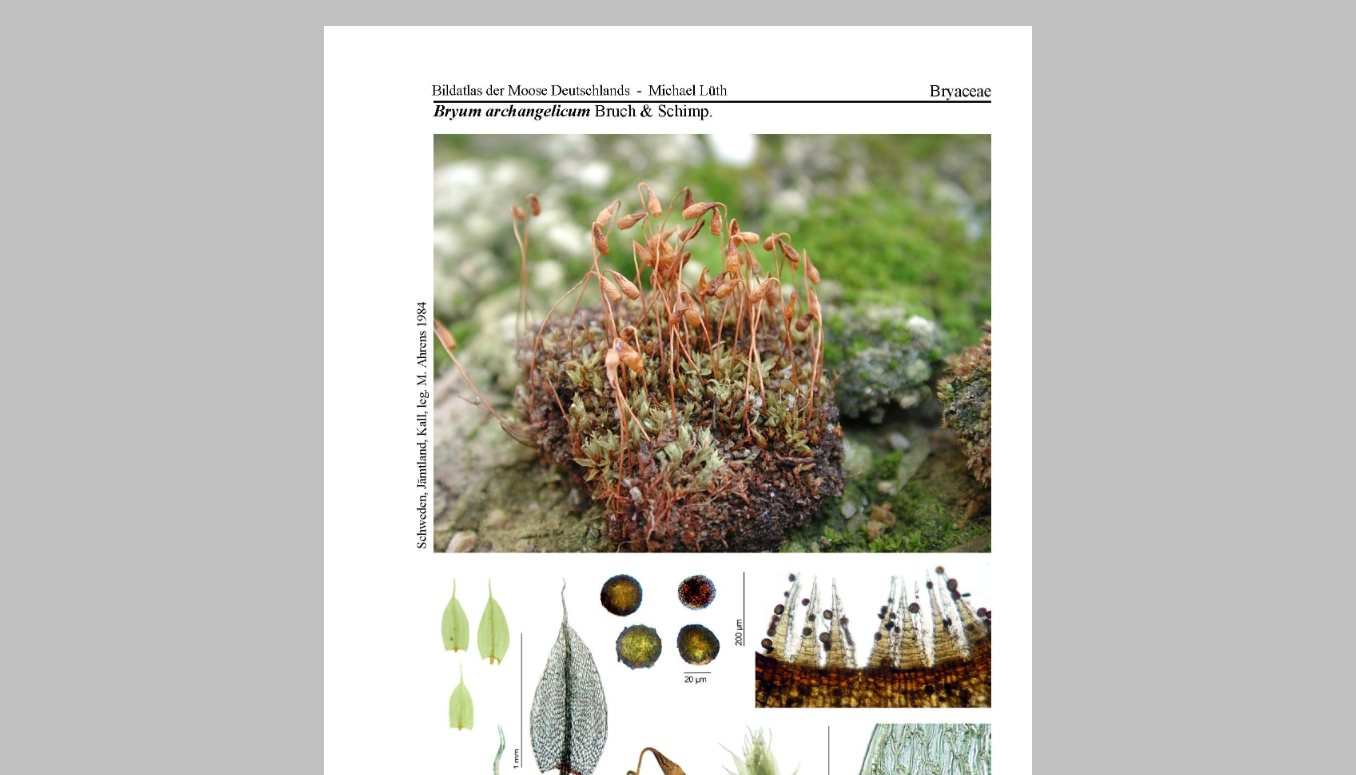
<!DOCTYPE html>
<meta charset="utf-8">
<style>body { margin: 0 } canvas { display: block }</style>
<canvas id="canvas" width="1356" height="775"></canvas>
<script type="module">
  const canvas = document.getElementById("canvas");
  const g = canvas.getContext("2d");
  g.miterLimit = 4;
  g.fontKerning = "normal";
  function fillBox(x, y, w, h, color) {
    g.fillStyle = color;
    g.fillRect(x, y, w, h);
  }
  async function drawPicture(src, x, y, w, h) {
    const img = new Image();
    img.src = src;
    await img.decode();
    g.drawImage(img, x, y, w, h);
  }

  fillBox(0, 0, 1356, 775, "#C0C0C0");
  await drawPicture("pic1.png", 324, 26, 708, 749);
</script>
